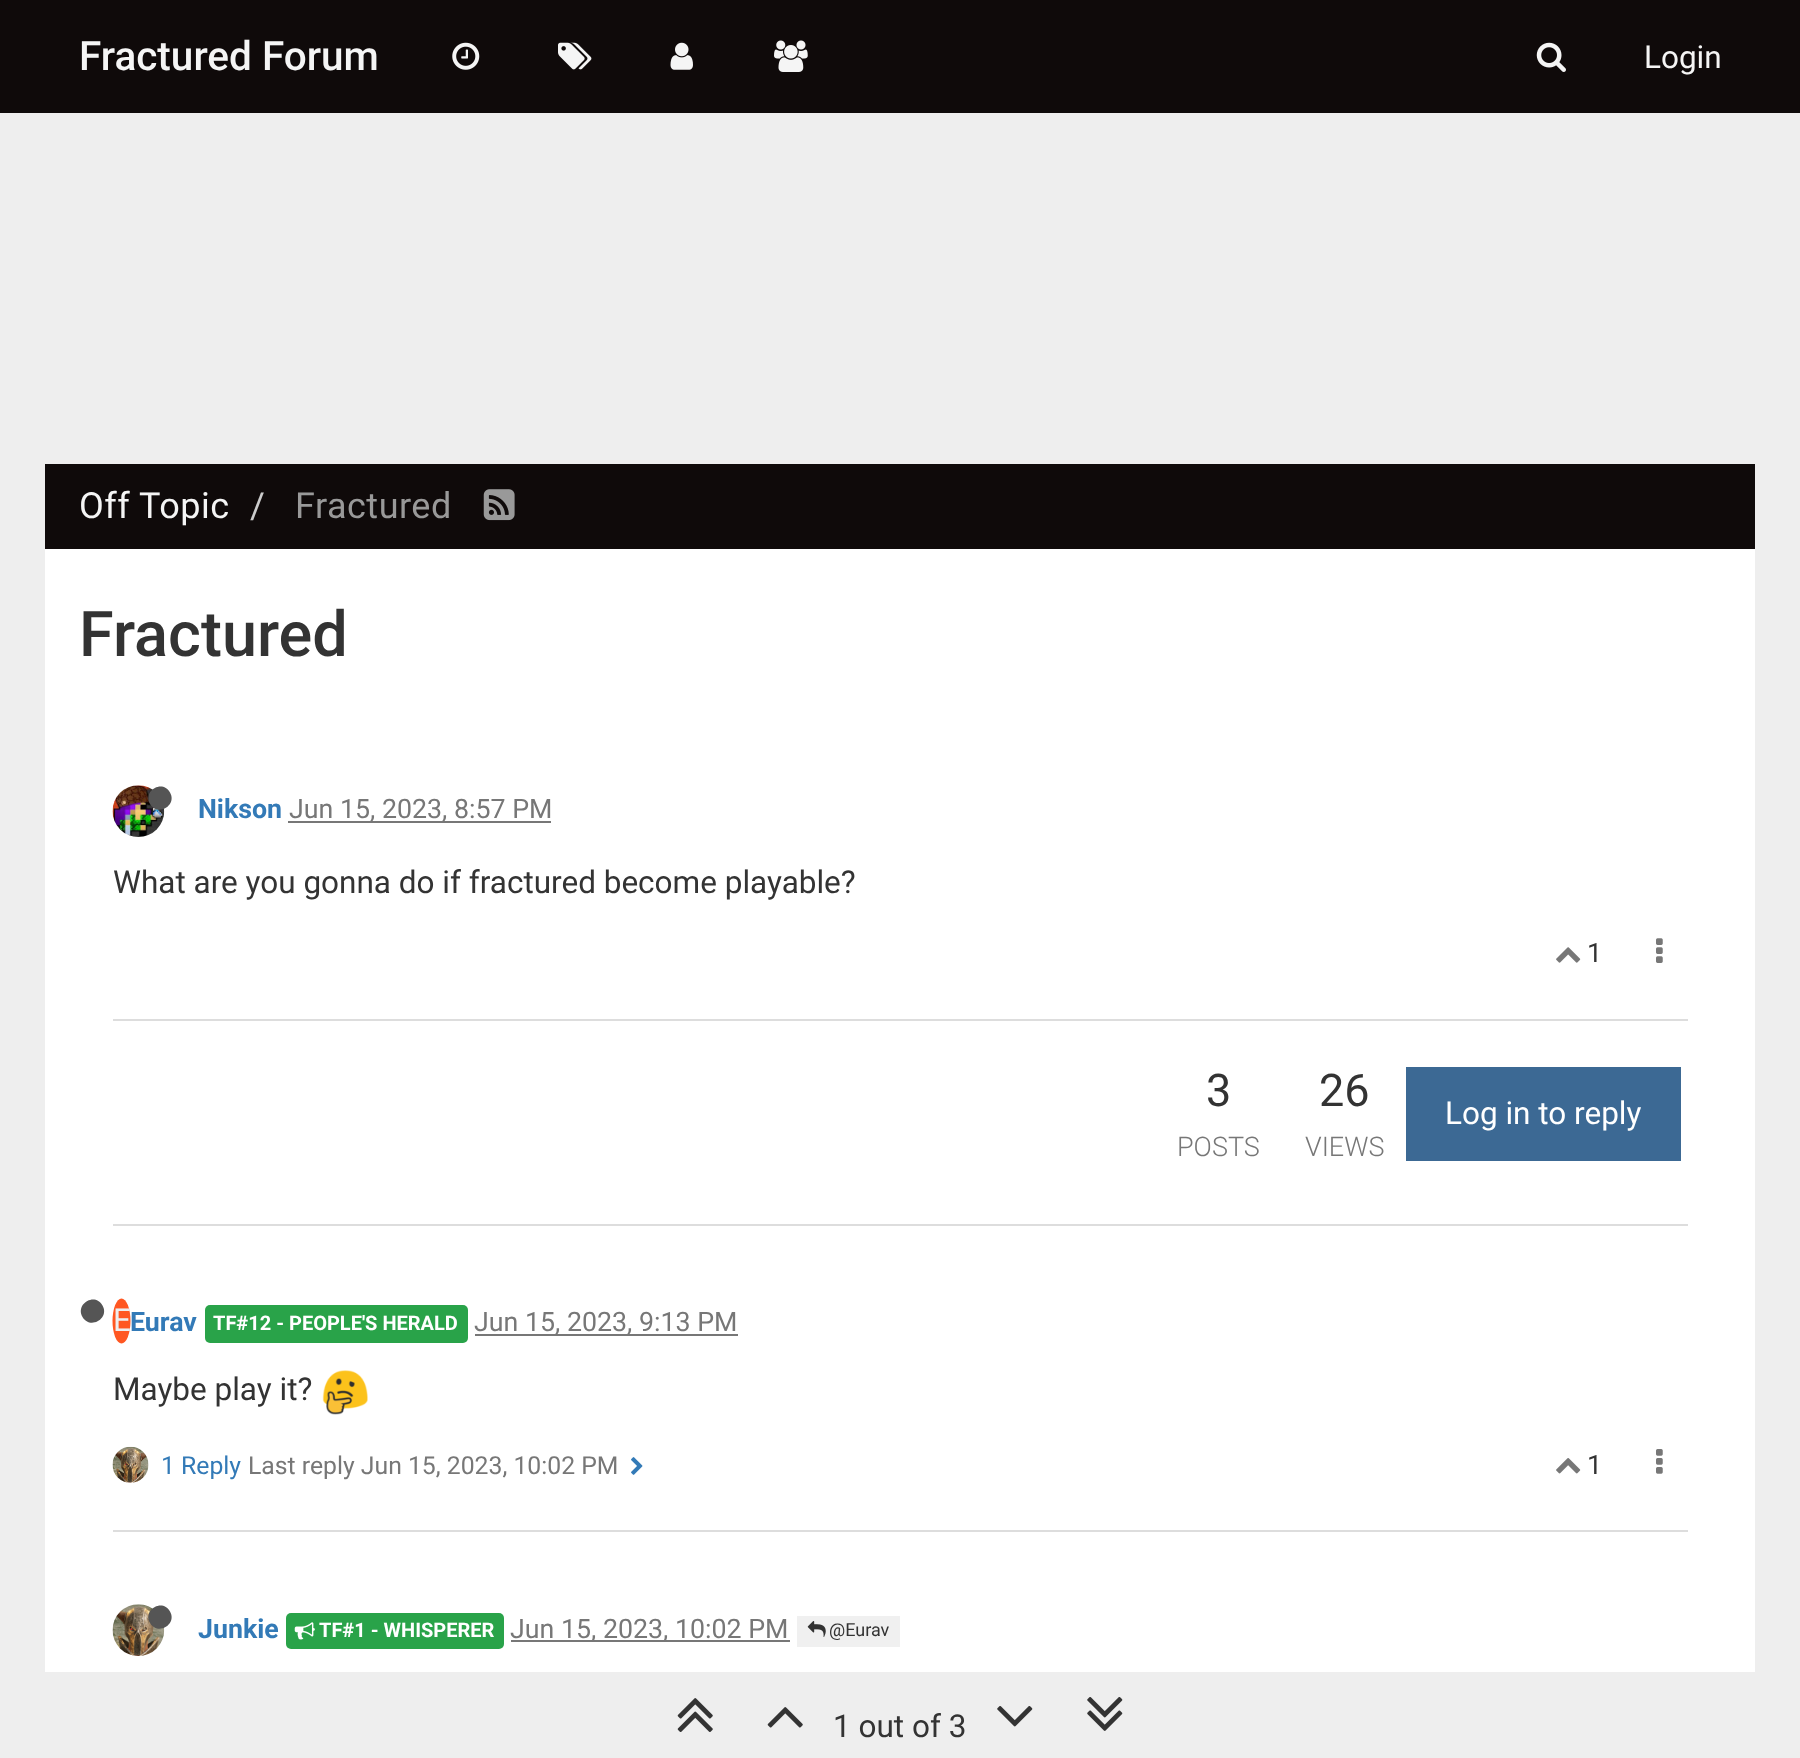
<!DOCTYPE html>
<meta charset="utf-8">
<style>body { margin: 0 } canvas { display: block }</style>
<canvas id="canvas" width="1800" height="1758"></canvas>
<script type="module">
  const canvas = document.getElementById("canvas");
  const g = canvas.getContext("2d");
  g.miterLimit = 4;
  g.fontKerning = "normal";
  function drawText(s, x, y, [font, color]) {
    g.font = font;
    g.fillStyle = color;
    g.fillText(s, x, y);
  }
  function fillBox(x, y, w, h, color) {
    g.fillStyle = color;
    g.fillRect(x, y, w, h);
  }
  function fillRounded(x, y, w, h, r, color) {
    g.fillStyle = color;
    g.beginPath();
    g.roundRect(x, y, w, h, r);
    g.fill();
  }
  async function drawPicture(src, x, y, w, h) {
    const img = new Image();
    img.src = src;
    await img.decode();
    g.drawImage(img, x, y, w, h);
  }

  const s1 = ["500 40.5px Roboto", "#F5F5F5"];
  const s2 = ["31.5px Roboto", "#F5F5F5"];
  const s3 = ["36px Roboto", "#F5F5F5"];
  const s4 = ["36px Roboto", "#CCCCCC"];
  const s5 = ["36px Roboto", "#999999"];
  const s6 = ["500 63px Roboto", "#333333"];
  const s7 = ["bold 26.75px Roboto", "#337AB7"];
  const s8 = ["26.75px Roboto", "#777777"];
  const s9 = ["31.5px Roboto", "#333333"];
  const s10 = ["26.75px Roboto", "#333333"];
  const s11 = ["45px Roboto", "#333333"];
  const s12 = ["300 27px Roboto", "#777777"];
  const s13 = ["31.5px Roboto", "#FFFFFF"];
  const s14 = ["31.5px Roboto", "#EEEEEE"];
  const s15 = ["bold 20px Roboto", "#FFFFFF"];
  const s16 = ["24.75px Roboto", "#337AB7"];
  const s17 = ["24.75px Roboto", "#777777"];
  const s18 = ["18px Roboto", "#333333"];

  fillBox(0, 0, 1800, 1758, "#EEEEEE");
  fillBox(0, 0, 1800, 113, "#0F0A0A");
  drawText("Fractured Forum", 79, 70, s1);
  await drawPicture("pic1.png", 452, 42, 28, 28);
  await drawPicture("pic2.png", 558, 42, 34, 28);
  await drawPicture("pic3.png", 670, 42, 23, 28);
  await drawPicture("pic4.png", 774, 40, 34, 32);
  await drawPicture("pic5.png", 1536, 42, 30, 30);
  drawText("Login", 1644, 68, s2);
  fillBox(45, 464, 1710, 85, "#0F0A0A");
  g.letterSpacing = "0.5px";
  drawText("Off Topic", 79, 518, s3);
  drawText("/", 250, 518, s4);
  drawText("Fractured", 295, 518, s5);
  await drawPicture("pic6.png", 483, 489, 32, 32);
  fillBox(45, 549, 1710, 1123, "#FFFFFF");
  g.letterSpacing = "0px";
  drawText("Fractured", 79, 656, s6);
  await drawPicture("pic7.png", 112, 785, 53, 52);
  g.fillStyle = "#555555";
  g.beginPath();
  g.moveTo(170, 792.5);
  g.bezierCurveTo(177.5, 805.5, 157.5, 817, 150, 804);
  g.bezierCurveTo(142.5, 791, 162.5, 779, 170, 792.5);
  g.closePath();
  g.fill();
  drawText("Nikson", 198, 818, s7);
  fillBox(288, 821, 263, 2, "#777777");
  drawText("Jun 15, 2023, 8:57 PM", 289, 818, s8);
  drawText("What are you gonna do if fractured become playable?", 113, 893, s9);
  await drawPicture("pic8.png", 1556, 947, 25, 16);
  drawText("1", 1587, 962, s10);
  await drawPicture("pic9.png", 1656, 938, 7, 25);
  fillBox(113, 1019, 1575, 2, "#DDDDDD");
  drawText("3", 1206, 1106, s11);
  drawText("POSTS", 1177, 1156, s12);
  drawText("26", 1319, 1106, s11);
  drawText("VIEWS", 1305, 1156, s12);
  fillBox(1406, 1067, 275, 94, "#3C6994");
  drawText("Log in to reply", 1445, 1124, s13);
  fillBox(113, 1224, 1575, 2, "#DDDDDD");
  g.fillStyle = "#555555";
  g.beginPath();
  g.moveTo(102.5, 1305.5);
  g.bezierCurveTo(110, 1318.5, 90, 1330, 82.5, 1317);
  g.bezierCurveTo(75, 1304, 95, 1292, 102.5, 1305.5);
  g.closePath();
  g.fill();
  g.fillStyle = "#FF5722";
  g.beginPath();
  g.ellipse(121.5, 1321, 9, 22.5, 0, 0, Math.PI * 2);
  g.fill();
  drawText("E", 113, 1331, s14);
  drawText("Eurav", 130, 1331, s7);
  fillRounded(205, 1305, 263, 38, 5, "#29A349");
  drawText("TF#12 - PEOPLE'S HERALD", 213, 1330, s15);
  fillBox(475, 1334, 263, 2, "#777777");
  drawText("Jun 15, 2023, 9:13 PM", 474, 1331, s8);
  drawText("Maybe play it?", 113, 1400, s9);
  await drawPicture("pic10.png", 322, 1370, 46, 45);
  await drawPicture("pic11.png", 112, 1446, 37, 37);
  drawText("1 Reply", 161, 1474, s16);
  drawText("Last reply Jun 15, 2023, 10:02 PM", 248, 1474, s17);
  await drawPicture("pic12.png", 631, 1457, 12, 18);
  await drawPicture("pic13.png", 1556, 1458, 25, 16);
  drawText("1", 1587, 1474, s10);
  await drawPicture("pic14.png", 1656, 1449, 7, 25);
  fillBox(113, 1530, 1575, 2, "#DDDDDD");
  await drawPicture("pic15.png", 112, 1604, 53, 52);
  g.fillStyle = "#555555";
  g.beginPath();
  g.moveTo(170, 1611.5);
  g.bezierCurveTo(177.5, 1624.5, 157.5, 1636, 150, 1623);
  g.bezierCurveTo(142.5, 1610, 162.5, 1598, 170, 1611.5);
  g.closePath();
  g.fill();
  drawText("Junkie", 198, 1638, s7);
  fillRounded(286, 1613, 218, 36, 5, "#29A349");
  await drawPicture("pic16.png", 294, 1622, 21, 18);
  drawText("TF#1 - WHISPERER", 319, 1637, s15);
  fillBox(511, 1640, 279, 2, "#777777");
  drawText("Jun 15, 2023, 10:02 PM", 510, 1638, s8);
  fillBox(797, 1616, 103, 31, "#F0F0F0");
  await drawPicture("pic17.png", 807, 1621, 19, 16);
  drawText("@Eurav", 829, 1636, s18);
  await drawPicture("pic18.png", 677, 1698, 36, 34);
  await drawPicture("pic19.png", 767, 1707, 36, 21);
  drawText("1 out of 3", 833, 1737, s9);
  await drawPicture("pic20.png", 997, 1706, 36, 21);
  await drawPicture("pic21.png", 1087, 1697, 36, 34);
</script>
